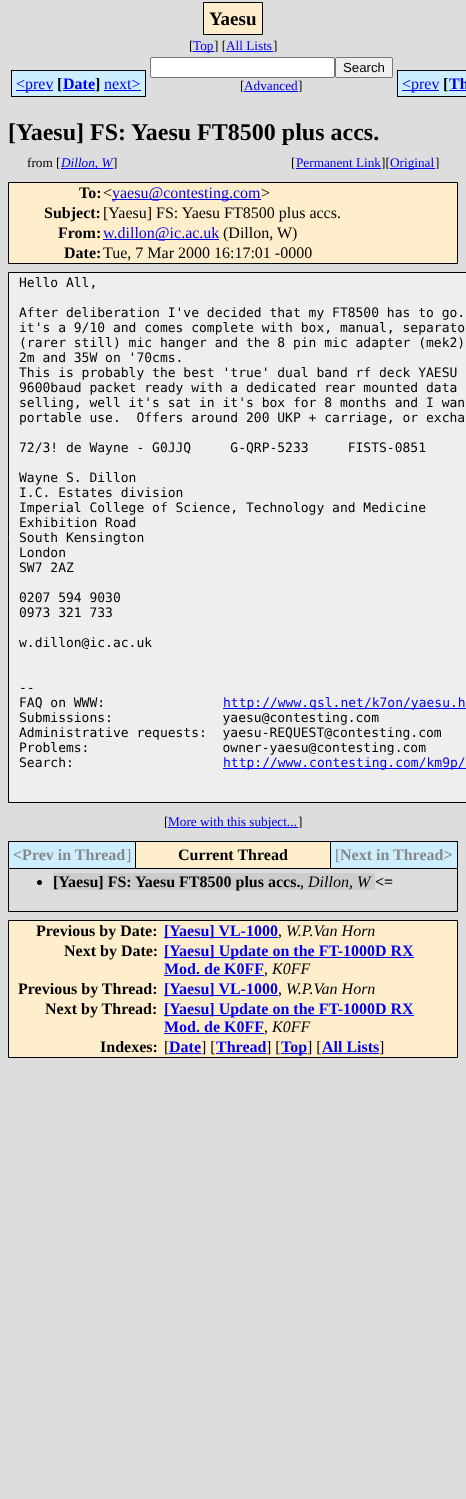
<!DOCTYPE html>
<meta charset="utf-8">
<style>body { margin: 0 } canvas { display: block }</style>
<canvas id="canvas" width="466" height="1499"></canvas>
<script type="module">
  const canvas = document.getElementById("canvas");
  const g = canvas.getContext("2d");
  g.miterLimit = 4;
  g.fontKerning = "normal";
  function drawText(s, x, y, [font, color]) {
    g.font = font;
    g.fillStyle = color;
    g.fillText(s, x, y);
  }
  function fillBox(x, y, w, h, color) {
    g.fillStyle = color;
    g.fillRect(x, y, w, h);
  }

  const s1 = ["bold 19px Liberation Serif", "#000000"];
  const s2 = ["13.25px Liberation Serif", "#000000"];
  const s3 = ["13.25px Liberation Serif", "#0000EE"];
  const s4 = ["16px Liberation Serif", "#0000EE"];
  const s5 = ["bold 16px Liberation Serif", "#000000"];
  const s6 = ["bold 16px Liberation Serif", "#0000EE"];
  const s7 = ["13.25px Liberation Sans", "#000000"];
  const s8 = ["bold 24px Liberation Serif", "#000000"];
  const s9 = ["italic 13.25px Liberation Serif", "#0000EE"];
  const s10 = ["16px Liberation Serif", "#000000"];
  const s11 = ["13px DejaVu Sans Mono", "#000000"];
  const s12 = ["13px DejaVu Sans Mono", "#0000EE"];
  const s13 = ["bold 16px Liberation Serif", "#888888"];
  const s14 = ["16px Liberation Serif", "#888888"];
  const s15 = ["italic 16px Liberation Serif", "#000000"];

  fillBox(0, 0, 466, 1499, "#DDDDDD");
  g.fillStyle = "#FFEECC";
  g.beginPath();
  g.rect(203.5, 2.5, 59, 32);
  g.fill();
  g.strokeStyle = "#000000";
  g.stroke();
  drawText("Yaesu", 209, 25, s1);
  drawText("[", 189, 50, s2);
  fillBox(193, 51, 21, 1, "#0000EE");
  drawText("Top", 193, 50, s3);
  drawText("] [", 214, 50, s2);
  drawText("All Lists", 226, 50, s3);
  drawText("]", 273, 50, s2);
  fillBox(226, 51, 47, 1, "#0000EE");
  fillBox(12, 71, 41, 25, "#CCEEFF");
  fillBox(16, 90, 37, 1, "#0000EE");
  fillBox(53, 70, 10, 27, "#CCEEFF");
  drawText("<prev", 16, 89, s4);
  fillBox(11, 70, 42, 1, "#000000");
  fillBox(11, 96, 42, 1, "#000000");
  fillBox(11, 70, 1, 27, "#000000");
  fillBox(53, 96, 42, 1, "#000000");
  drawText("[", 57, 89, s5);
  fillBox(63, 71, 32, 25, "#CCEEFF");
  fillBox(63, 90, 32, 1, "#0000EE");
  drawText("Date", 63, 89, s6);
  fillBox(53, 70, 42, 1, "#000000");
  fillBox(95, 70, 9, 27, "#CCEEFF");
  fillBox(95, 70, 51, 1, "#000000");
  drawText("]", 95, 89, s5);
  fillBox(95, 96, 9, 1, "#000000");
  fillBox(104, 71, 41, 25, "#CCEEFF");
  drawText("next>", 104, 89, s4);
  fillBox(145, 70, 1, 27, "#000000");
  fillBox(104, 96, 42, 1, "#000000");
  fillBox(104, 90, 37, 1, "#0000EE");
  g.fillStyle = "#FFFFFF";
  g.beginPath();
  g.roundRect(150.5, 57.5, 184, 20, 1.5);
  g.fill();
  g.strokeStyle = "#767676";
  g.stroke();
  g.fillStyle = "#EFEFEF";
  g.beginPath();
  g.roundRect(335.5, 57.5, 57, 20, 1.5);
  g.fill();
  g.stroke();
  drawText("Search", 343, 72, s7);
  drawText("[", 240, 90, s2);
  fillBox(244, 91, 54, 1, "#0000EE");
  drawText("Advanced", 244, 90, s3);
  drawText("]", 298, 90, s2);
  fillBox(398, 71, 41, 25, "#CCEEFF");
  fillBox(402, 90, 37, 1, "#0000EE");
  fillBox(439, 70, 10, 27, "#CCEEFF");
  drawText("<prev", 402, 89, s4);
  fillBox(397, 70, 42, 1, "#000000");
  fillBox(397, 96, 42, 1, "#000000");
  fillBox(397, 70, 1, 27, "#000000");
  fillBox(439, 96, 27, 1, "#000000");
  drawText("[", 443, 89, s5);
  fillBox(449, 71, 17, 25, "#CCEEFF");
  fillBox(449, 90, 17, 1, "#0000EE");
  drawText("Th", 449, 89, s6);
  fillBox(439, 70, 27, 1, "#000000");
  drawText("[Yaesu] FS: Yaesu FT8500 plus accs.", 8, 140, s8);
  drawText("from [", 27, 167, s2);
  fillBox(61, 168, 52, 1, "#0000EE");
  drawText("Dillon, W", 61, 167, s9);
  drawText("]", 113, 167, s2);
  drawText("[", 291, 167, s2);
  fillBox(296, 168, 85, 1, "#0000EE");
  drawText("Permanent Link", 296, 167, s3);
  drawText("][", 381, 167, s2);
  fillBox(390, 168, 45, 1, "#0000EE");
  drawText("Original", 390, 167, s3);
  drawText("]", 435, 167, s2);
  g.fillStyle = "#FFEECC";
  g.beginPath();
  g.rect(8.5, 182.5, 449, 81);
  g.fill();
  g.strokeStyle = "#000000";
  g.stroke();
  drawText("To:", 79, 198, s5);
  drawText("<", 103, 198, s10);
  fillBox(112, 199, 149, 1, "#0000EE");
  drawText("yaesu@contesting.com", 112, 198, s4);
  drawText(">", 261, 198, s10);
  drawText("Subject:", 44, 218, s5);
  drawText("[Yaesu] FS: Yaesu FT8500 plus accs.", 103, 218, s10);
  drawText("From:", 58, 238, s5);
  fillBox(103, 239, 116, 1, "#0000EE");
  drawText("w.dillon@ic.ac.uk", 103, 238, s4);
  drawText("(Dillon, W)", 223, 238, s10);
  drawText("Date:", 64, 258, s5);
  drawText("Tue, 7 Mar 2000 16:17:01 -0000", 103, 258, s10);
  g.fillStyle = "#EEEEEE";
  g.beginPath();
  g.rect(8.5, 272.5, 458, 530);
  g.fill();
  g.stroke();
  drawText("Hello All,", 19, 287, s11);
  drawText("After deliberation I've decided that my FT8500 has to go.", 19, 317, s11);
  drawText("it's a 9/10 and comes complete with box, manual, separato", 19, 332, s11);
  drawText("(rarer still) mic hanger and the 8 pin mic adapter (mek2)", 19, 347, s11);
  drawText("2m and 35W on '70cms.", 19, 362, s11);
  drawText("This is probably the best 'true' dual band rf deck YAESU", 19, 377, s11);
  drawText("9600baud packet ready with a dedicated rear mounted data", 19, 392, s11);
  drawText("selling, well it's sat in it's box for 8 months and I wan", 19, 407, s11);
  drawText("portable use.  Offers around 200 UKP + carriage, or excha", 19, 422, s11);
  drawText("72/3! de Wayne - G0JJQ     G-QRP-5233     FISTS-0851", 19, 452, s11);
  drawText("Wayne S. Dillon", 19, 482, s11);
  drawText("I.C. Estates division", 19, 497, s11);
  drawText("Imperial College of Science, Technology and Medicine", 19, 512, s11);
  drawText("Exhibition Road", 19, 527, s11);
  drawText("South Kensington", 19, 542, s11);
  drawText("London", 19, 557, s11);
  drawText("SW7 2AZ", 19, 572, s11);
  drawText("0207 594 9030", 19, 602, s11);
  drawText("0973 321 733", 19, 617, s11);
  drawText("w.dillon@ic.ac.uk", 19, 647, s11);
  drawText("--", 19, 692, s11);
  drawText("FAQ on WWW:", 19, 707, s11);
  fillBox(223, 708, 243, 1, "#0000EE");
  drawText("http://www.qsl.net/k7on/yaesu.h", 223, 707, s12);
  drawText("Submissions:              yaesu@contesting.com", 19, 722, s11);
  drawText("Administrative requests:  yaesu-REQUEST@contesting.com", 19, 737, s11);
  drawText("Problems:                 owner-yaesu@contesting.com", 19, 752, s11);
  drawText("Search:", 19, 767, s11);
  fillBox(223, 768, 243, 1, "#0000EE");
  drawText("http://www.contesting.com/km9p/", 223, 767, s12);
  drawText("[", 164, 826, s2);
  fillBox(168, 827, 130, 1, "#0000EE");
  drawText("More with this subject...", 168, 826, s3);
  drawText("]", 298, 826, s2);
  fillBox(8, 841, 450, 71, "#000000");
  fillBox(9, 842, 126, 26, "#CCEEFF");
  drawText("<Prev in Thread", 13, 860, s13);
  drawText("]", 126, 860, s14);
  fillBox(136, 842, 194, 26, "#FFEECC");
  drawText("Current Thread", 178, 860, s5);
  fillBox(331, 842, 126, 26, "#CCEEFF");
  drawText("[", 335, 860, s14);
  drawText("Next in Thread>", 340, 860, s13);
  fillBox(9, 869, 448, 42, "#DDDDDD");
  g.fillStyle = "#000000";
  g.beginPath();
  g.arc(39.5, 882.5, 2.5, 0, Math.PI * 2);
  g.fill();
  fillBox(53, 873, 322, 17, "#CCCCCC");
  drawText("[Yaesu] FS: Yaesu FT8500 plus accs.", 53, 887, s5);
  drawText("Dillon, W", 308, 887, s15);
  drawText("<=", 375, 887, s5);
  drawText(",", 300, 887, s10);
  g.fillStyle = "#FFEECC";
  g.beginPath();
  g.rect(8.5, 920.5, 449, 137);
  g.fill();
  g.stroke();
  drawText("Previous by Date:", 36, 936, s5);
  fillBox(164, 937, 114, 1, "#0000EE");
  drawText("[Yaesu] VL-1000", 164, 936, s6);
  drawText(",", 278, 936, s10);
  drawText("W.P.Van Horn", 286, 936, s15);
  drawText("Next by Date:", 64, 956, s5);
  fillBox(164, 957, 250, 1, "#0000EE");
  drawText("[Yaesu] Update on the FT-1000D RX", 164, 956, s6);
  drawText("Mod. de K0FF", 164, 974, s6);
  fillBox(164, 975, 100, 1, "#0000EE");
  drawText(",", 264, 974, s10);
  drawText("K0FF", 272, 974, s15);
  drawText("Previous by Thread:", 18, 994, s5);
  fillBox(164, 995, 114, 1, "#0000EE");
  drawText("[Yaesu] VL-1000", 164, 994, s6);
  drawText(",", 278, 994, s10);
  drawText("W.P.Van Horn", 286, 994, s15);
  drawText("Next by Thread:", 45, 1014, s5);
  fillBox(164, 1015, 250, 1, "#0000EE");
  drawText("[Yaesu] Update on the FT-1000D RX", 164, 1014, s6);
  drawText("Mod. de K0FF", 164, 1032, s6);
  fillBox(164, 1033, 100, 1, "#0000EE");
  drawText(",", 264, 1032, s10);
  drawText("K0FF", 272, 1032, s15);
  drawText("Indexes:", 100, 1052, s5);
  drawText("[", 164, 1052, s10);
  drawText("Date", 169, 1052, s6);
  fillBox(169, 1053, 32, 1, "#0000EE");
  drawText("] [", 201, 1052, s10);
  drawText("Thread", 216, 1052, s6);
  fillBox(216, 1053, 50, 1, "#0000EE");
  drawText("] [", 266, 1052, s10);
  fillBox(281, 1053, 26, 1, "#0000EE");
  drawText("Top", 281, 1052, s6);
  drawText("] [", 307, 1052, s10);
  drawText("All Lists", 322, 1052, s6);
  fillBox(322, 1053, 57, 1, "#0000EE");
  drawText("]", 379, 1052, s10);
</script>
